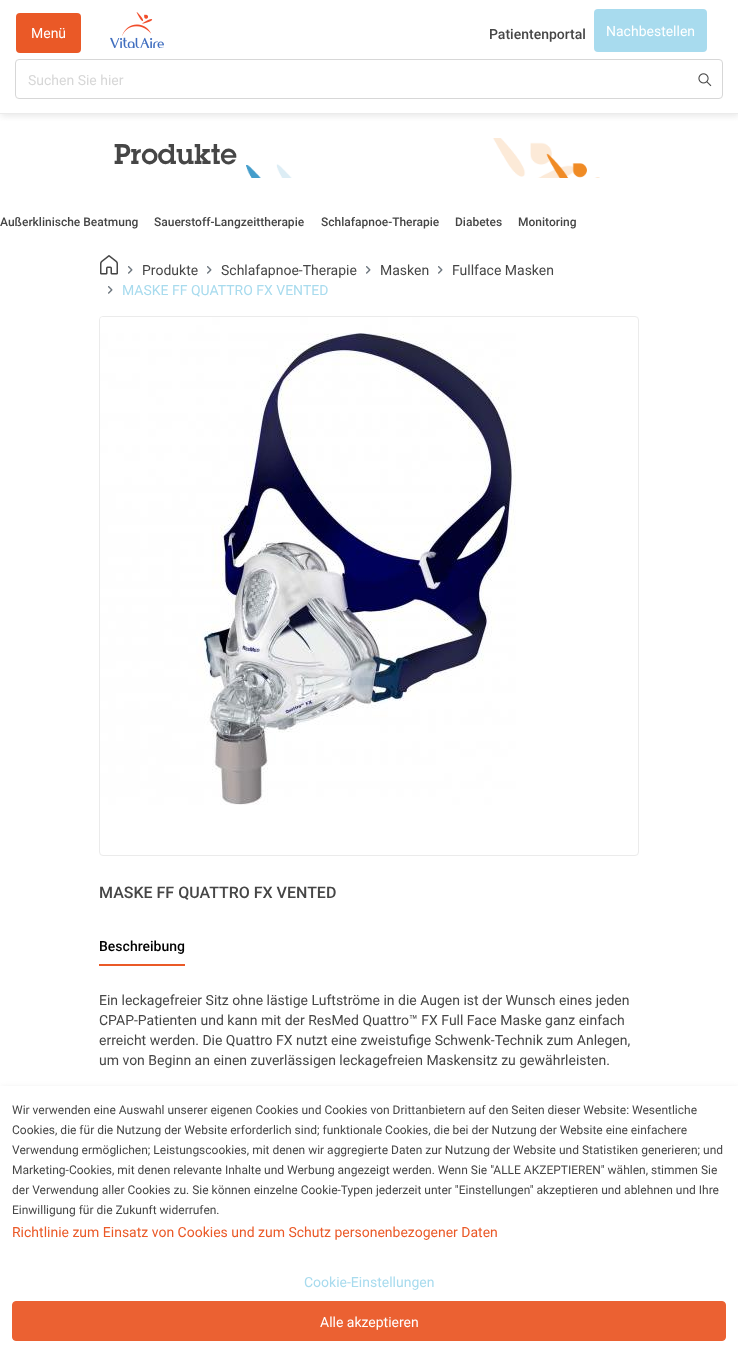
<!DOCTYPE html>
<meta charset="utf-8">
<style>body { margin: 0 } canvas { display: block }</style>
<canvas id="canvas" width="738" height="1353"></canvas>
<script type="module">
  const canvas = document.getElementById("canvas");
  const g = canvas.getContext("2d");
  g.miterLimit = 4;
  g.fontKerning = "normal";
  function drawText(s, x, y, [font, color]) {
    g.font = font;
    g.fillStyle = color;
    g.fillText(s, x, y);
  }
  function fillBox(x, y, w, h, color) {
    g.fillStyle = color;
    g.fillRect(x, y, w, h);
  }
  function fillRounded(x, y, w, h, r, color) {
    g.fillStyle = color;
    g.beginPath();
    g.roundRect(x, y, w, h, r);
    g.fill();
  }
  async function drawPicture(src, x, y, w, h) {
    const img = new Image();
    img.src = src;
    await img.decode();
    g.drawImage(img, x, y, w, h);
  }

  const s1 = ["500 14px Roboto", "#464646"];
  const s2 = ["14px Roboto", "#FFFFFF"];
  const s3 = ["14px Roboto", "#D7D7D7"];
  const s4 = ["600 28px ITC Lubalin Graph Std", "#464646"];
  const s5 = ["500 12px Roboto", "#464646"];
  const s6 = ["14px Roboto", "#464646"];
  const s7 = ["14px Roboto", "#A8DBEE"];
  const s8 = ["500 16px Roboto", "#464646"];
  const s9 = ["500 14px Roboto", "#000000"];
  const s10 = ["12px Roboto", "#464646"];
  const s11 = ["14px Roboto", "#EA5927"];

  fillBox(0, 0, 738, 1353, "#FFFFFF");
  g.save();
  g.beginPath();
  g.rect(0, 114, 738, 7);
  g.clip();
  g.fillStyle = "rgba(196, 196, 196, 0.4)";
  g.filter = "blur(3px)";
  g.beginPath();
  g.rect(1, 2, 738, 114);
  g.fill();
  g.filter = "none";
  g.restore();
  fillBox(0, 113, 738, 1, "#EBEBEB");
  drawText("Patientenportal", 489, 39, s1);
  fillRounded(594, 9, 113, 43, 4, "#A8DBEE");
  drawText("Nachbestellen", 606, 36, s2);
  g.beginPath();
  g.roundRect(15.5, 59.5, 707, 39, 3.5);
  g.strokeStyle = "#D7D7D7";
  g.stroke();
  drawText("Suchen Sie hier", 28, 85, s3);
  await drawPicture("pic1.png", 698, 73, 14, 14);
  fillRounded(16, 13, 65, 40, 4, "#EA5927");
  drawText("Menü", 31, 38, s2);
  await drawPicture("pic2.png", 110, 12, 54, 36);
  await drawPicture("pic3.png", 246, 138, 354, 40);
  drawText("Produkte", 114, 164, s4);
  drawText("Außerklinische Beatmung", 0, 226, s5);
  drawText("Sauerstoff-Langzeittherapie", 154, 226, s5);
  drawText("Schlafapnoe-Therapie", 321, 226, s5);
  drawText("Diabetes", 455, 226, s5);
  drawText("Monitoring", 518, 226, s5);
  await drawPicture("pic4.png", 100, 255, 18, 20);
  await drawPicture("pic5.png", 128, 266, 5, 8);
  drawText("Produkte", 142, 275, s6);
  await drawPicture("pic5.png", 207, 266, 5, 8);
  drawText("Schlafapnoe-Therapie", 221, 275, s6);
  await drawPicture("pic5.png", 366, 266, 5, 8);
  drawText("Masken", 380, 275, s6);
  await drawPicture("pic5.png", 438, 266, 5, 8);
  drawText("Fullface Masken", 452, 275, s6);
  await drawPicture("pic5.png", 108, 286, 5, 8);
  drawText("MASKE FF QUATTRO FX VENTED", 122, 295, s7);
  g.beginPath();
  g.roundRect(99.5, 316.5, 539, 539, 3.5);
  g.strokeStyle = "#EBEBEB";
  g.stroke();
  await drawPicture("pic6.png", 100, 317, 416, 488);
  drawText("MASKE FF QUATTRO FX VENTED", 99, 898, s8);
  fillBox(99, 964, 86, 2, "#EA5927");
  drawText("Beschreibung", 99, 951, s9);
  drawText("Ein leckagefreier Sitz ohne lästige Luftströme in die Augen ist der Wunsch eines jeden", 99, 1005, s6);
  drawText("CPAP-Patienten und kann mit der ResMed Quattro™ FX Full Face Maske ganz einfach", 99, 1025, s6);
  drawText("erreicht werden. Die Quattro FX nutzt eine zweistufige Schwenk-Technik zum Anlegen,", 99, 1045, s6);
  drawText("um von Beginn an einen zuverlässigen leckagefreien Maskensitz zu gewährleisten.", 99, 1065, s6);
  g.fillStyle = "rgba(196, 196, 196, 0.4)";
  g.filter = "blur(3px)";
  g.beginPath();
  g.rect(1, 1088, 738, 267);
  g.fill();
  g.filter = "none";
  fillBox(0, 1086, 738, 267, "#FFFFFF");
  drawText("Wir verwenden eine Auswahl unserer eigenen Cookies und Cookies von Drittanbietern auf den Seiten dieser Website: Wesentliche", 12, 1114, s10);
  drawText("Cookies, die für die Nutzung der Website erforderlich sind; funktionale Cookies, die bei der Nutzung der Website eine einfachere", 12, 1134, s10);
  drawText("Verwendung ermöglichen; Leistungscookies, mit denen wir aggregierte Daten zur Nutzung der Website und Statistiken generieren; und", 12, 1154, s10);
  drawText("Marketing-Cookies, mit denen relevante Inhalte und Werbung angezeigt werden. Wenn Sie \"ALLE AKZEPTIEREN\" wählen, stimmen Sie", 12, 1174, s10);
  drawText("der Verwendung aller Cookies zu. Sie können einzelne Cookie-Typen jederzeit unter \"Einstellungen\" akzeptieren und ablehnen und Ihre", 12, 1194, s10);
  drawText("Einwilligung für die Zukunft widerrufen.", 12, 1214, s10);
  drawText("Richtlinie zum Einsatz von Cookies und zum Schutz personenbezogener Daten", 12, 1237, s11);
  drawText("Cookie-Einstellungen", 304, 1287, s7);
  g.fillStyle = "#EB6132";
  g.beginPath();
  g.roundRect(12.5, 1301.5, 713, 39, 3.5);
  g.fill();
  g.strokeStyle = "#EB6132";
  g.stroke();
  drawText("Alle akzeptieren", 320, 1327, s2);
</script>
